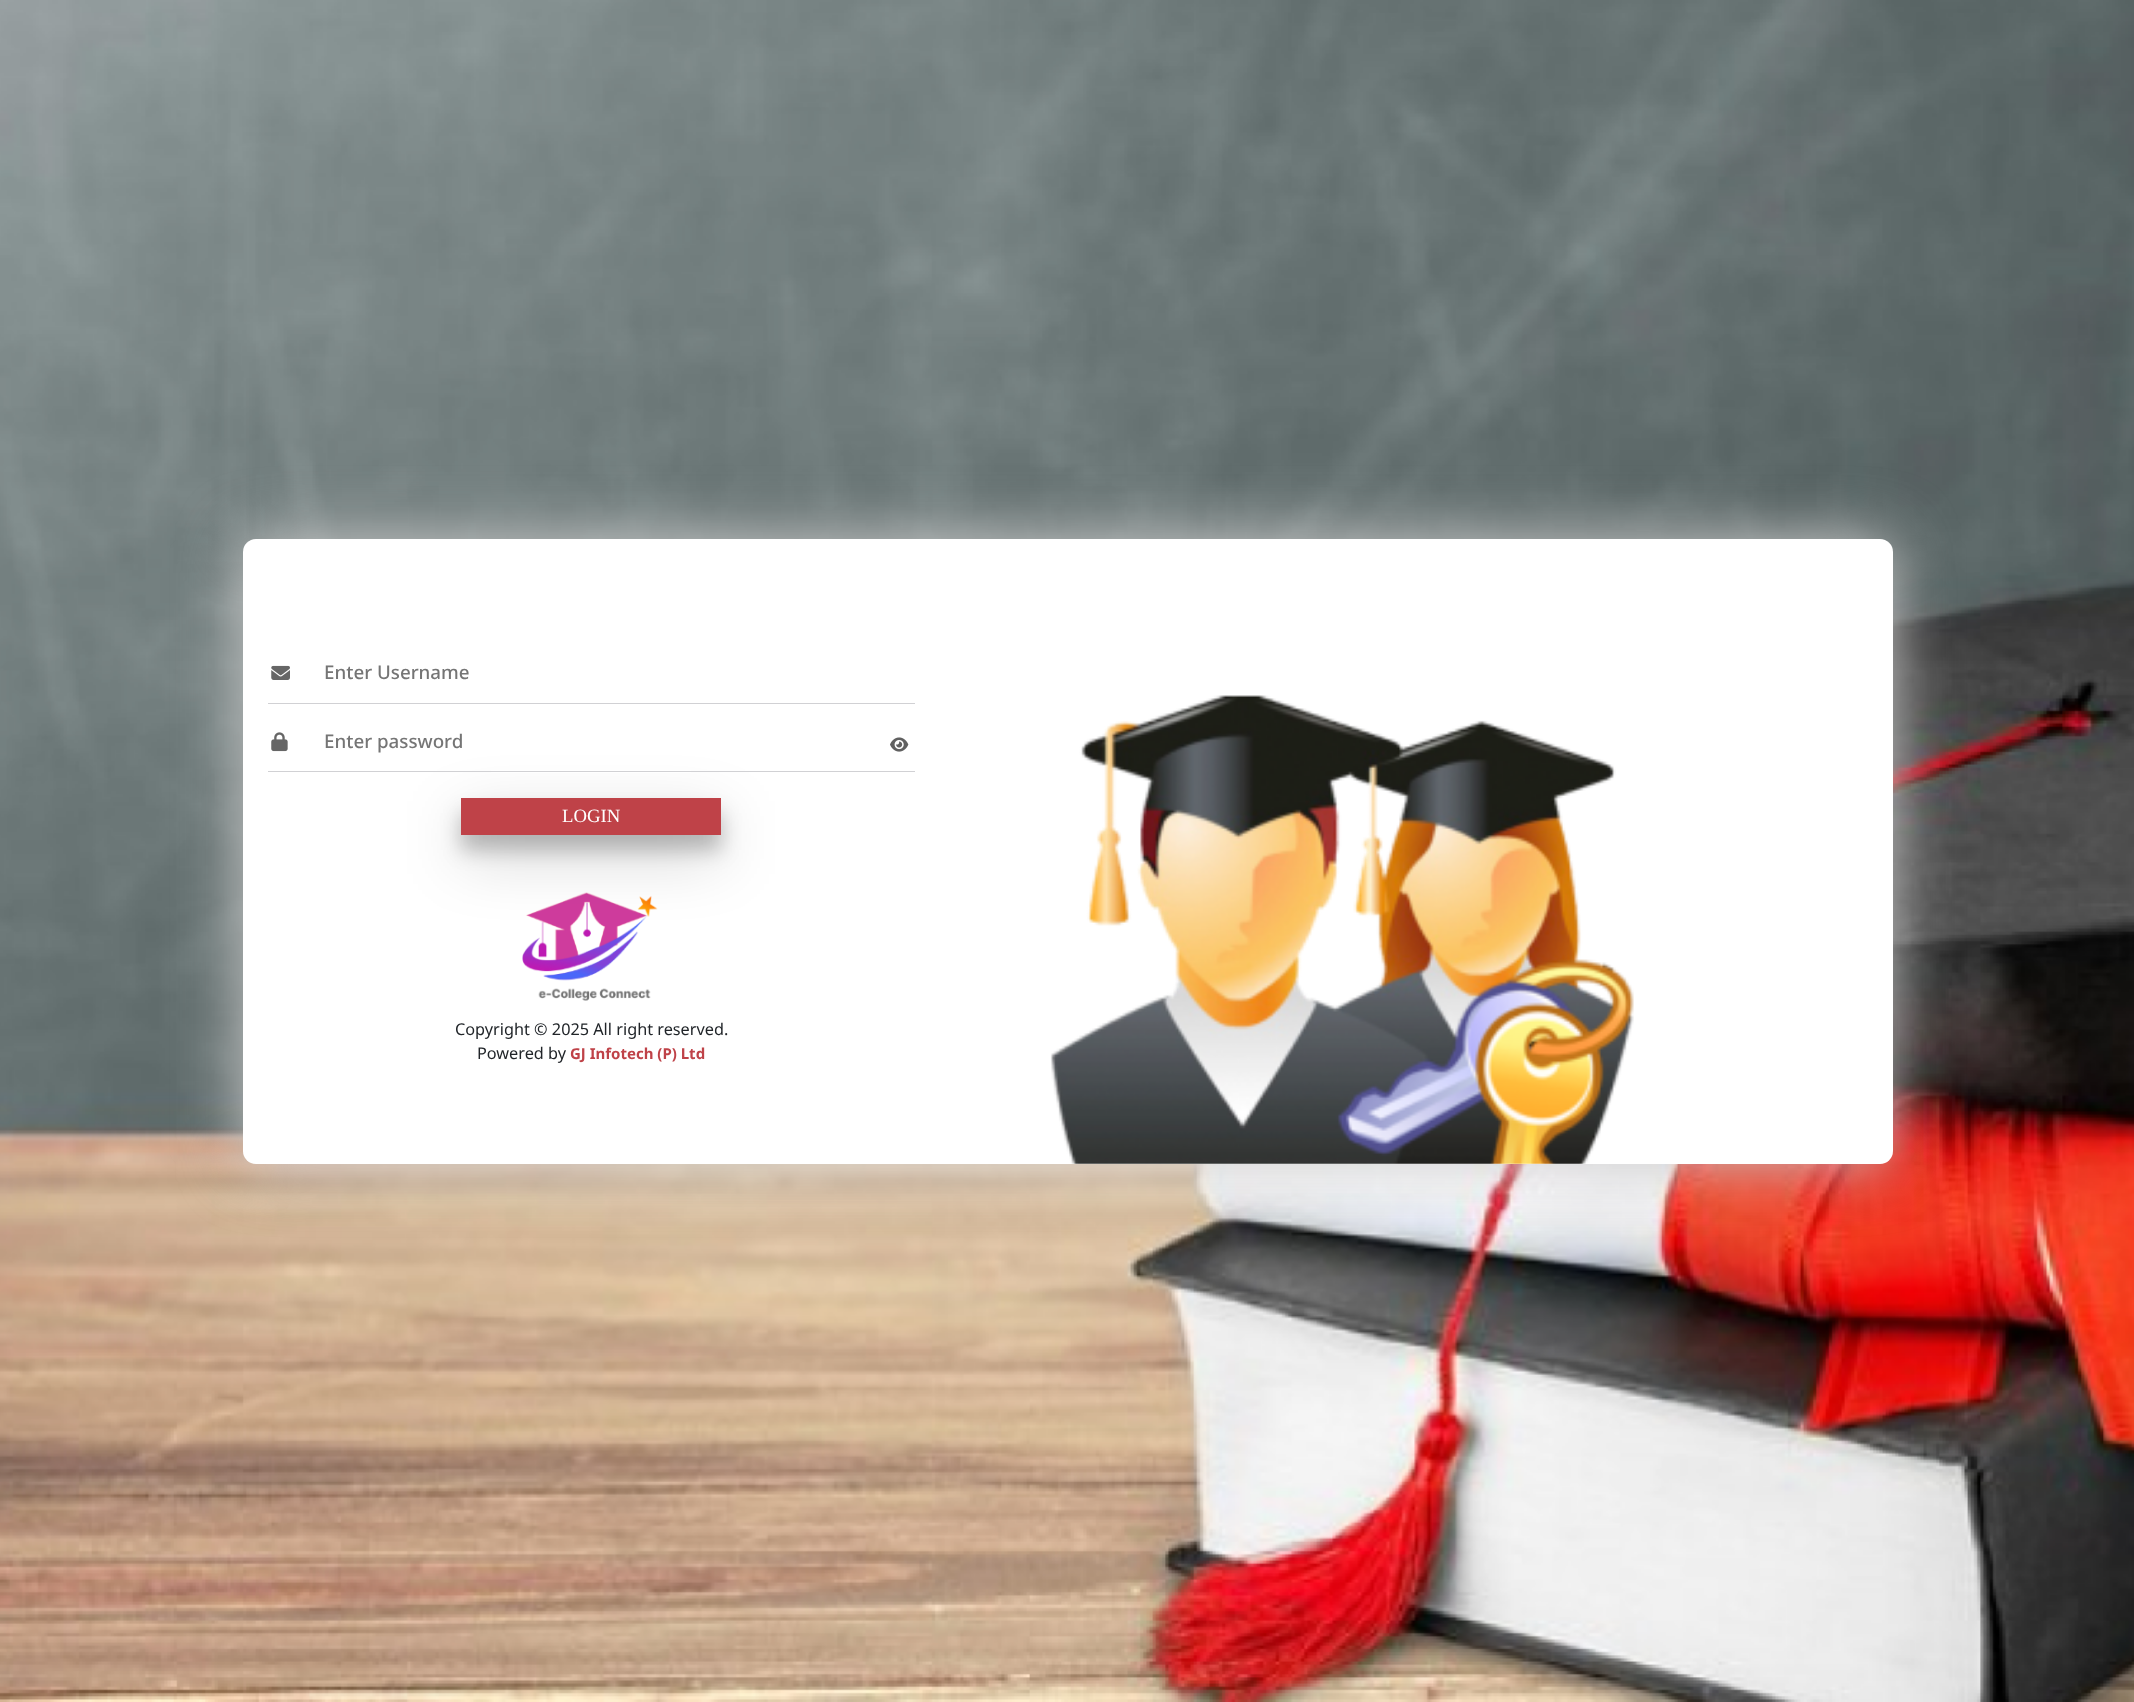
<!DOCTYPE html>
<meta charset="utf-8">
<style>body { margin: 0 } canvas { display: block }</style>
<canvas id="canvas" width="2134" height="1702"></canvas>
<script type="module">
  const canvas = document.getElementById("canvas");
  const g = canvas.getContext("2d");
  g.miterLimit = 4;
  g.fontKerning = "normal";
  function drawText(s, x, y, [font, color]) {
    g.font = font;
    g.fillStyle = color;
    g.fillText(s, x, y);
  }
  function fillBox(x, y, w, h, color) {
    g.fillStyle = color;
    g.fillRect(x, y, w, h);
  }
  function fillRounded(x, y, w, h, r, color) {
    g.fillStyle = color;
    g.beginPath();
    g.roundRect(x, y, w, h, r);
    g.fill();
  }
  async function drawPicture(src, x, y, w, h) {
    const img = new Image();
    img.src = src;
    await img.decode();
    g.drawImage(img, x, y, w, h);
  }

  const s1 = ["500 18.75px Noto Sans", "#757575"];
  const s2 = ["18.75px Liberation Serif", "#FFFFFF"];
  const s3 = ["16.25px Noto Sans", "#212529"];
  const s4 = ["bold 15px Noto Sans", "#BF4248"];

  fillBox(0, 0, 2134, 1702, "#FFFFFF");
  await drawPicture("pic1.png", 0, 0, 2134, 1702);
  g.fillStyle = "#CCCCCC";
  g.filter = "blur(31px)";
  g.beginPath();
  g.roundRect(243, 539, 1650, 625, 13);
  g.fill();
  g.filter = "none";
  fillRounded(243, 539, 1650, 625, 13, "#FFFFFF");
  await drawPicture("pic2.png", 271, 665, 19, 15);
  fillBox(268, 703, 647, 1, "#D1D1D4");
  drawText("Enter Username", 324, 679, s1);
  await drawPicture("pic3.png", 271, 732, 17, 20);
  await drawPicture("pic5.png", 522, 892, 136, 109);
  g.fillStyle = "rgba(0, 0, 0, 0.19)";
  g.filter = "blur(31px)";
  g.beginPath();
  g.rect(461, 819, 260, 37);
  g.fill();
  g.filter = "none";
  fillBox(491, 770, 200, 3, "#FFFFFF");
  fillBox(268, 771, 647, 1, "#D1D1D4");
  drawText("Enter password", 324, 748, s1);
  await drawPicture("pic4.png", 890, 737, 19, 15);
  g.fillStyle = "rgba(0, 0, 0, 0.24)";
  g.filter = "blur(10px)";
  g.beginPath();
  g.rect(461, 813, 260, 37);
  g.fill();
  g.filter = "none";
  fillBox(461, 798, 260, 37, "#BF4248");
  drawText("LOGIN", 562, 822, s2);
  drawText("Copyright © 2025 All right reserved.", 455, 1035, s3);
  drawText("Powered by", 477, 1059, s3);
  drawText("GJ Infotech (P) Ltd", 570, 1059, s4);
  await drawPicture("pic6.png", 1050, 695, 584, 469);
</script>
